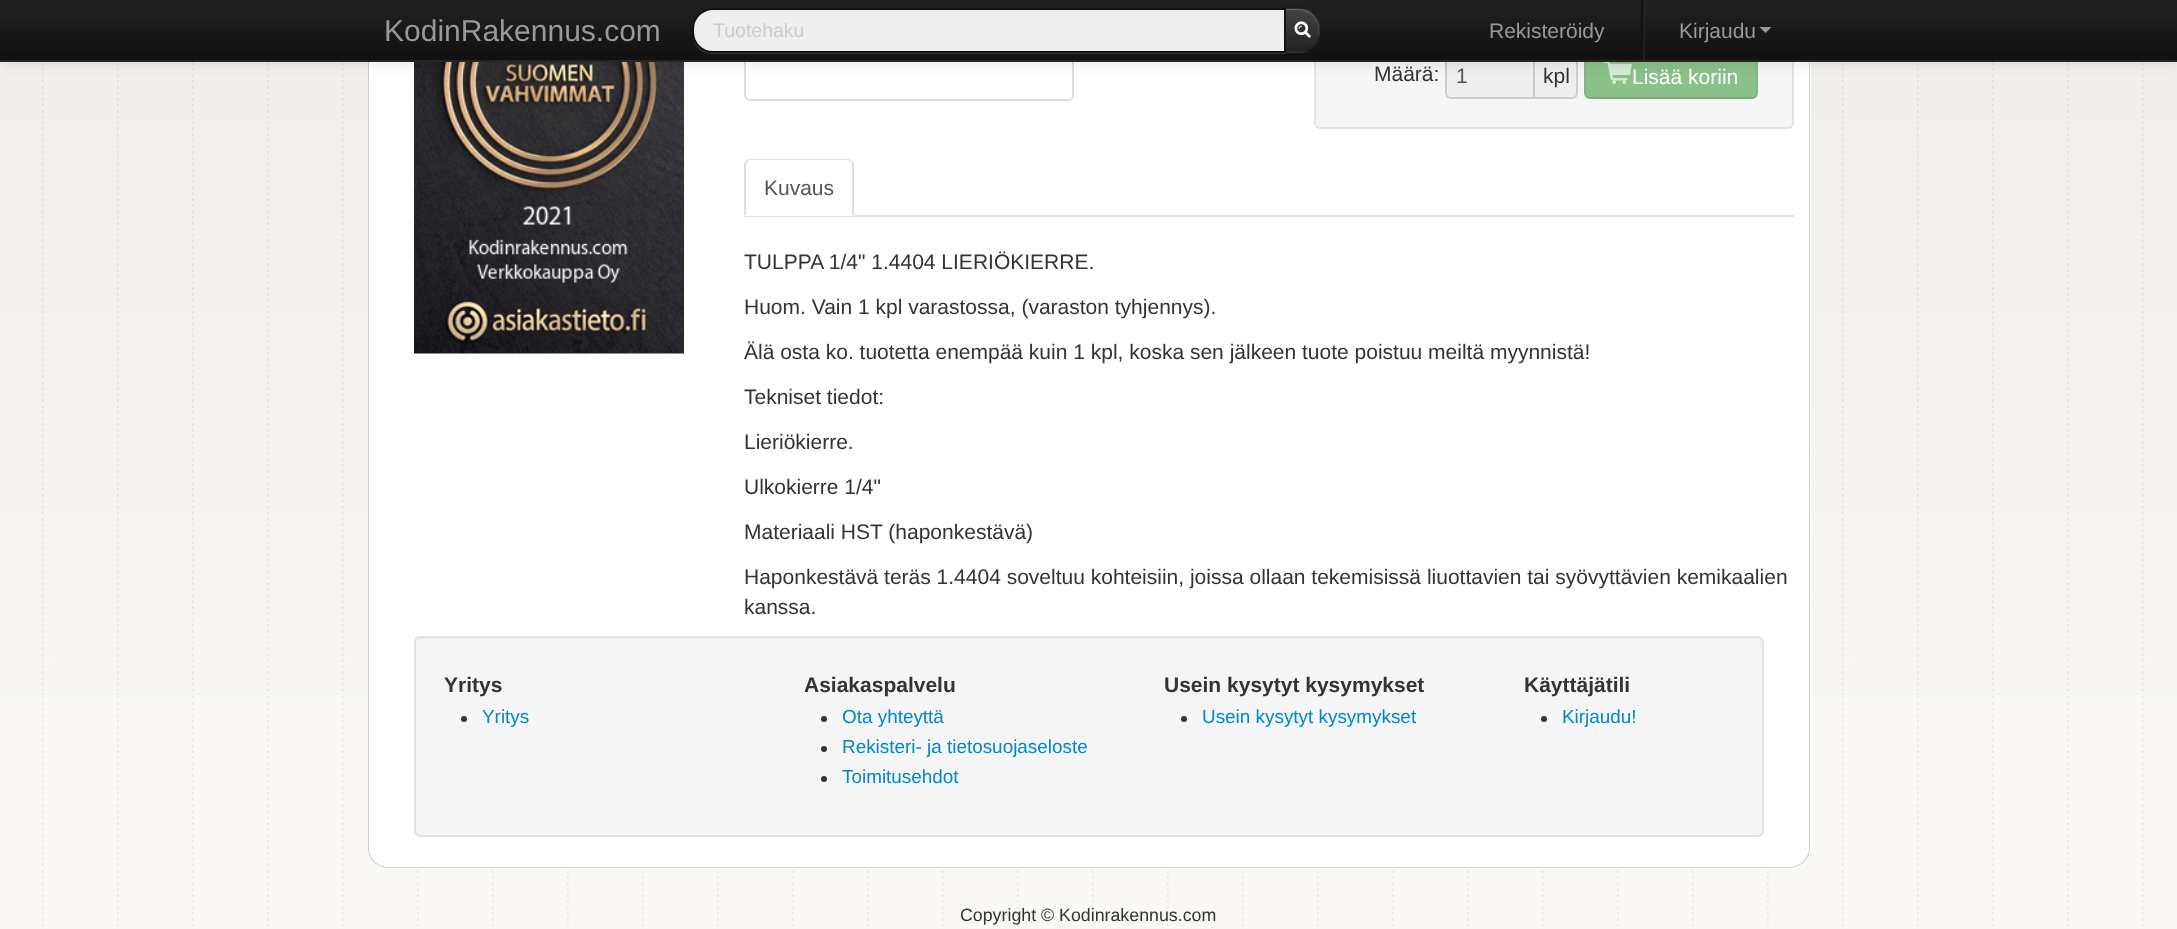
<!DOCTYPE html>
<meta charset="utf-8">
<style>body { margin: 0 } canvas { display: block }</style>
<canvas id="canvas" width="2177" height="929"></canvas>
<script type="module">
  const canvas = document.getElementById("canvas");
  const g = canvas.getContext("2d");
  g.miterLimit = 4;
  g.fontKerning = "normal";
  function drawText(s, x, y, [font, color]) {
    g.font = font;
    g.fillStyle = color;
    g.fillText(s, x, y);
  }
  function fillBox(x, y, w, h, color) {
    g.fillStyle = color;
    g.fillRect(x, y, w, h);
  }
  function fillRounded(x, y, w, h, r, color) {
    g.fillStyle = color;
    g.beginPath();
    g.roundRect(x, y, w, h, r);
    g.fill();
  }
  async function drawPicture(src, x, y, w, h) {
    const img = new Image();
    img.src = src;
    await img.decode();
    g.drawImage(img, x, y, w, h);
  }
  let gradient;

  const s1 = ["30px Liberation Sans", "#999999"];
  const s2 = ["19.5px Liberation Sans", "#CCCCCC"];
  const s3 = ["21px Liberation Sans", "#999999"];
  const s4 = ["21px Liberation Sans", "#333333"];
  const s5 = ["21px Liberation Sans", "#555555"];
  const s6 = ["21px Liberation Sans", "#FCFCFC"];
  const s7 = ["bold 21px Liberation Sans", "#333333"];
  const s8 = ["18.9px Liberation Sans", "#0088CC"];
  const s9 = ["17.8px Liberation Sans", "#333333"];

  fillBox(0, 0, 2177, 929, "#FFFFFF");
  await drawPicture("pic1.png", 0, 695, 2177, 234);
  await drawPicture("pic3.png", 0, 62, 2177, 632);
  fillBox(0, 694, 2177, 1, "#F1F1F1");
  g.fillStyle = "#FFFFFF";
  g.beginPath();
  g.moveTo(368, -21);
  g.lineTo(1811, -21);
  g.lineTo(1811, 848);
  g.bezierCurveTo(1811, 859.5, 1801.5, 869, 1790, 869);
  g.lineTo(389, 869);
  g.bezierCurveTo(377.5, 869, 368, 859.5, 368, 848);
  g.closePath();
  g.fill();
  g.fillStyle = "#D1D1D1";
  g.beginPath();
  g.moveTo(368, -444);
  g.lineTo(1810, -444);
  g.lineTo(1810, 848);
  g.bezierCurveTo(1810, 859, 1801, 868, 1790, 868);
  g.lineTo(388, 868);
  g.bezierCurveTo(377, 868, 368, 859, 368, 848);
  g.closePath();
  g.moveTo(369, -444);
  g.lineTo(1809, -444);
  g.lineTo(1809, 848);
  g.bezierCurveTo(1809, 858, 1800, 867, 1790, 867);
  g.lineTo(388, 867);
  g.bezierCurveTo(378, 867, 369, 858, 369, 848);
  g.closePath();
  g.fill("evenodd");
  await drawPicture("pic4.png", 414, 62, 270, 292);
  g.beginPath();
  g.roundRect(745, -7, 328, 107, 5);
  g.strokeStyle = "#DDDDDD";
  g.lineWidth = 2;
  g.stroke();
  g.fillStyle = "#F5F5F5";
  g.beginPath();
  g.roundRect(1315, -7, 478, 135, 5);
  g.fill();
  g.strokeStyle = "#E3E3E3";
  g.stroke();
  g.fillStyle = "#EEEEEE";
  g.beginPath();
  g.roundRect(1534, 55, 43, 43, [0, 5, 5, 0]);
  g.fill();
  g.strokeStyle = "#CCCCCC";
  g.stroke();
  g.beginPath();
  g.roundRect(1446, 55, 88, 43, [5, 0, 0, 5]);
  g.fill();
  g.stroke();
  fillRounded(1584, 53, 174, 46, 6, "#8AC08A");
  g.beginPath();
  g.moveTo(1755.5, 96.5);
  g.bezierCurveTo(1754.5, 97.5, 1753.5, 98, 1752, 98);
  g.lineTo(1590, 98);
  g.bezierCurveTo(1588.5, 98, 1587.5, 97.5, 1586.5, 96.5);
  g.strokeStyle = "rgba(86, 86, 86, 0.25)";
  g.lineWidth = 1.5;
  g.stroke();
  g.beginPath();
  g.moveTo(1586.5, 96.5);
  g.bezierCurveTo(1585.5, 95.5, 1585, 94.5, 1585, 93);
  g.lineTo(1585, 58.5);
  g.bezierCurveTo(1585, 57, 1585.5, 56, 1586.5, 55);
  g.bezierCurveTo(1587.5, 54, 1588.5, 53, 1590, 53);
  g.lineTo(1752, 53);
  g.bezierCurveTo(1753.5, 53, 1754.5, 54, 1755.5, 55);
  g.bezierCurveTo(1756.5, 56, 1757, 57, 1757, 58.5);
  g.lineTo(1757, 93);
  g.bezierCurveTo(1757, 94.5, 1756.5, 95.5, 1755.5, 96.5);
  g.strokeStyle = "rgba(86, 86, 86, 0.1)";
  g.stroke();
  await drawPicture("pic5.png", 1603, 62, 29, 22);
  await drawPicture("pic6.png", 1811, 62, 13, 632);
  g.fillStyle = "rgba(0, 0, 0, 0.1)";
  g.filter = "blur(7.5px)";
  g.beginPath();
  g.rect(0, 2, 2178, 61);
  g.fill();
  g.filter = "none";
  gradient = g.createLinearGradient(1089, 0, 1089, 60);
  gradient.addColorStop(0, "#222222");
  gradient.addColorStop(1, "#111111");
  g.fillStyle = gradient;
  g.fillRect(0, 0, 2177, 60);
  fillBox(0, 60, 2177, 2, "#252525");
  drawText("KodinRakennus.com", 384, 41, s1);
  g.fillStyle = "#363636";
  g.beginPath();
  g.roundRect(1284, 8, 36, 45, [0, 21, 21, 0]);
  g.fill();
  g.save();
  g.beginPath();
  g.roundRect(1284, 8, 36, 45, [0, 21, 21, 0]);
  g.clip();
  gradient = g.createLinearGradient(1302, 9, 1302, 51);
  gradient.addColorStop(0, "#444444");
  gradient.addColorStop(1, "#222222");
  g.fillStyle = gradient;
  g.fillRect(1286, 9, 34, 42);
  g.restore();
  g.fillStyle = "rgba(255, 255, 255, 0.2)";
  g.beginPath();
  g.moveTo(1286, 10);
  g.bezierCurveTo(1298, 10, 1311.5, 8.5, 1317, 22.5);
  g.bezierCurveTo(1319, 27.5, 1319, 32.5, 1318, 37.5);
  g.bezierCurveTo(1322, 26, 1315.5, 12, 1303, 9.5);
  g.bezierCurveTo(1298, 8.5, 1291.5, 9, 1286, 9);
  g.closePath();
  g.fill();
  g.fillStyle = "rgba(0, 0, 0, 0.1)";
  g.beginPath();
  g.moveTo(1286, 9);
  g.lineTo(1286, 9.5);
  g.lineTo(1284.5, 8);
  g.bezierCurveTo(1295, 8, 1305.5, 5, 1314, 13.5);
  g.lineTo(1312.5, 15);
  g.bezierCurveTo(1305.5, 8, 1295, 9, 1286, 9);
  g.closePath();
  g.fill();
  g.beginPath();
  g.moveTo(1320, 35);
  g.bezierCurveTo(1319, 39.5, 1317.5, 43.5, 1314, 46.5);
  g.lineTo(1313, 45.5);
  g.bezierCurveTo(1321, 37, 1320.5, 22.5, 1312.5, 15);
  g.lineTo(1314, 13.5);
  g.bezierCurveTo(1317, 17, 1319, 21.5, 1320, 26.5);
  g.closePath();
  g.fill();
  g.fillStyle = "rgba(0, 0, 0, 0.25)";
  g.beginPath();
  g.moveTo(1314, 46.5);
  g.bezierCurveTo(1306, 54.5, 1294.5, 52, 1284.5, 52);
  g.lineTo(1286, 50.5);
  g.lineTo(1286, 51);
  g.bezierCurveTo(1295, 51, 1306, 52.5, 1313, 45.5);
  g.closePath();
  g.fill();
  g.fillStyle = "rgba(255, 255, 255, 0.15)";
  g.beginPath();
  g.moveTo(693, 39);
  g.bezierCurveTo(695, 48, 703, 54, 713, 54);
  g.lineTo(1286, 54);
  g.lineTo(1286, 9);
  g.lineTo(1286, 52);
  g.lineTo(712, 52);
  g.bezierCurveTo(704, 52, 696, 47, 693, 39);
  g.closePath();
  g.fill();
  g.fillStyle = "#EEEEEE";
  g.beginPath();
  g.roundRect(693, 9, 592, 43, [20, 0, 0, 20]);
  g.fill();
  g.strokeStyle = "#111111";
  g.lineWidth = 2;
  g.stroke();
  drawText("Tuotehaku", 713, 37, s2);
  await drawPicture("pic2.png", 1294, 21, 17, 17);
  drawText("Rekisteröidy", 1489, 38, s3);
  fillBox(1643, 9, 2, 51, "#222222");
  fillBox(1641, 0, 2, 51, "#111111");
  drawText("Kirjaudu", 1679, 38, s3);
  g.beginPath();
  g.moveTo(1759.5, 27);
  g.lineTo(1771.5, 27);
  g.lineTo(1765.5, 33);
  g.closePath();
  g.fill();
  drawText("Määrä:", 1374, 81, s4);
  drawText("1", 1456, 83, s5);
  drawText("kpl", 1543, 83, s4);
  drawText("Lisää koriin", 1632, 84, s6);
  fillBox(744, 215, 1050, 2, "#DDDDDD");
  g.fillStyle = "#FFFFFF";
  g.beginPath();
  g.roundRect(744, 159, 110, 57, [6, 6, 0, 0]);
  g.fill();
  g.fillStyle = "#DDDDDD";
  g.beginPath();
  g.moveTo(750, 159);
  g.bezierCurveTo(748, 159, 747, 160, 746, 161);
  g.lineTo(747, 162);
  g.lineTo(750, 160);
  g.lineTo(848, 160);
  g.lineTo(851, 162);
  g.lineTo(852, 161);
  g.bezierCurveTo(851, 160, 849, 159, 848, 159);
  g.closePath();
  g.fill();
  g.beginPath();
  g.moveTo(854, 163);
  g.lineTo(854, 216);
  g.lineTo(852, 214);
  g.lineTo(852, 165);
  g.bezierCurveTo(852, 164, 852, 163, 851, 162);
  g.lineTo(852, 161);
  g.closePath();
  g.fill();
  g.beginPath();
  g.moveTo(744, 216);
  g.lineTo(746, 214);
  g.lineTo(746, 165);
  g.lineTo(747, 162);
  g.lineTo(746, 161);
  g.bezierCurveTo(745, 162, 744, 164, 744, 165);
  g.closePath();
  g.fill();
  drawText("Kuvaus", 764, 195, s5);
  drawText("TULPPA 1/4\" 1.4404 LIERIÖKIERRE.", 744, 269, s4);
  drawText("Huom. Vain 1 kpl varastossa, (varaston tyhjennys).", 744, 314, s4);
  drawText("Älä osta ko. tuotetta enempää kuin 1 kpl, koska sen jälkeen tuote poistuu meiltä myynnistä!", 744, 359, s4);
  drawText("Tekniset tiedot:", 744, 404, s4);
  drawText("Lieriökierre.", 744, 449, s4);
  drawText("Ulkokierre 1/4\"", 744, 494, s4);
  drawText("Materiaali HST (haponkestävä)", 744, 539, s4);
  drawText("Haponkestävä teräs 1.4404 soveltuu kohteisiin, joissa ollaan tekemisissä liuottavien tai syövyttävien kemikaalien", 744, 584, s4);
  drawText("kanssa.", 744, 614, s4);
  fillRounded(414, 636, 1350, 201, 6, "#F5F5F5");
  g.fillStyle = "#E9E9E9";
  g.beginPath();
  g.moveTo(420, 639);
  g.lineTo(1758, 639);
  g.bezierCurveTo(1760, 639, 1762, 641, 1762, 644);
  g.lineTo(1762, 832);
  g.lineTo(1761, 835);
  g.bezierCurveTo(1762, 834, 1763, 832, 1763, 831);
  g.lineTo(1763, 643);
  g.bezierCurveTo(1763, 640, 1761, 638, 1758, 638);
  g.lineTo(421, 638);
  g.bezierCurveTo(418, 638, 416, 640, 416, 643);
  g.lineTo(416, 644);
  g.bezierCurveTo(416, 641, 418, 639, 420, 639);
  g.closePath();
  g.fill();
  g.beginPath();
  g.roundRect(415, 637, 1348, 199, 5);
  g.strokeStyle = "#E3E3E3";
  g.stroke();
  drawText("Yritys", 444, 692, s7);
  g.beginPath();
  g.arc(464, 719, 3, 0, Math.PI * 2);
  g.fill();
  drawText("Yritys", 482, 723, s8);
  drawText("Asiakaspalvelu", 804, 692, s7);
  g.beginPath();
  g.arc(824, 719, 3, 0, Math.PI * 2);
  g.fill();
  drawText("Ota yhteyttä", 842, 723, s8);
  g.fillStyle = "#333333";
  g.beginPath();
  g.arc(824, 749, 3, 0, Math.PI * 2);
  g.fill();
  drawText("Rekisteri- ja tietosuojaseloste", 842, 753, s8);
  g.fillStyle = "#333333";
  g.beginPath();
  g.arc(824, 779, 3, 0, Math.PI * 2);
  g.fill();
  drawText("Toimitusehdot", 842, 783, s8);
  drawText("Usein kysytyt kysymykset", 1164, 692, s7);
  g.beginPath();
  g.arc(1184, 719, 3, 0, Math.PI * 2);
  g.fill();
  drawText("Usein kysytyt kysymykset", 1202, 723, s8);
  drawText("Käyttäjätili", 1524, 692, s7);
  g.beginPath();
  g.arc(1544, 719, 3, 0, Math.PI * 2);
  g.fill();
  drawText("Kirjaudu!", 1562, 723, s8);
  drawText("Copyright © Kodinrakennus.com", 960, 921, s9);
</script>
